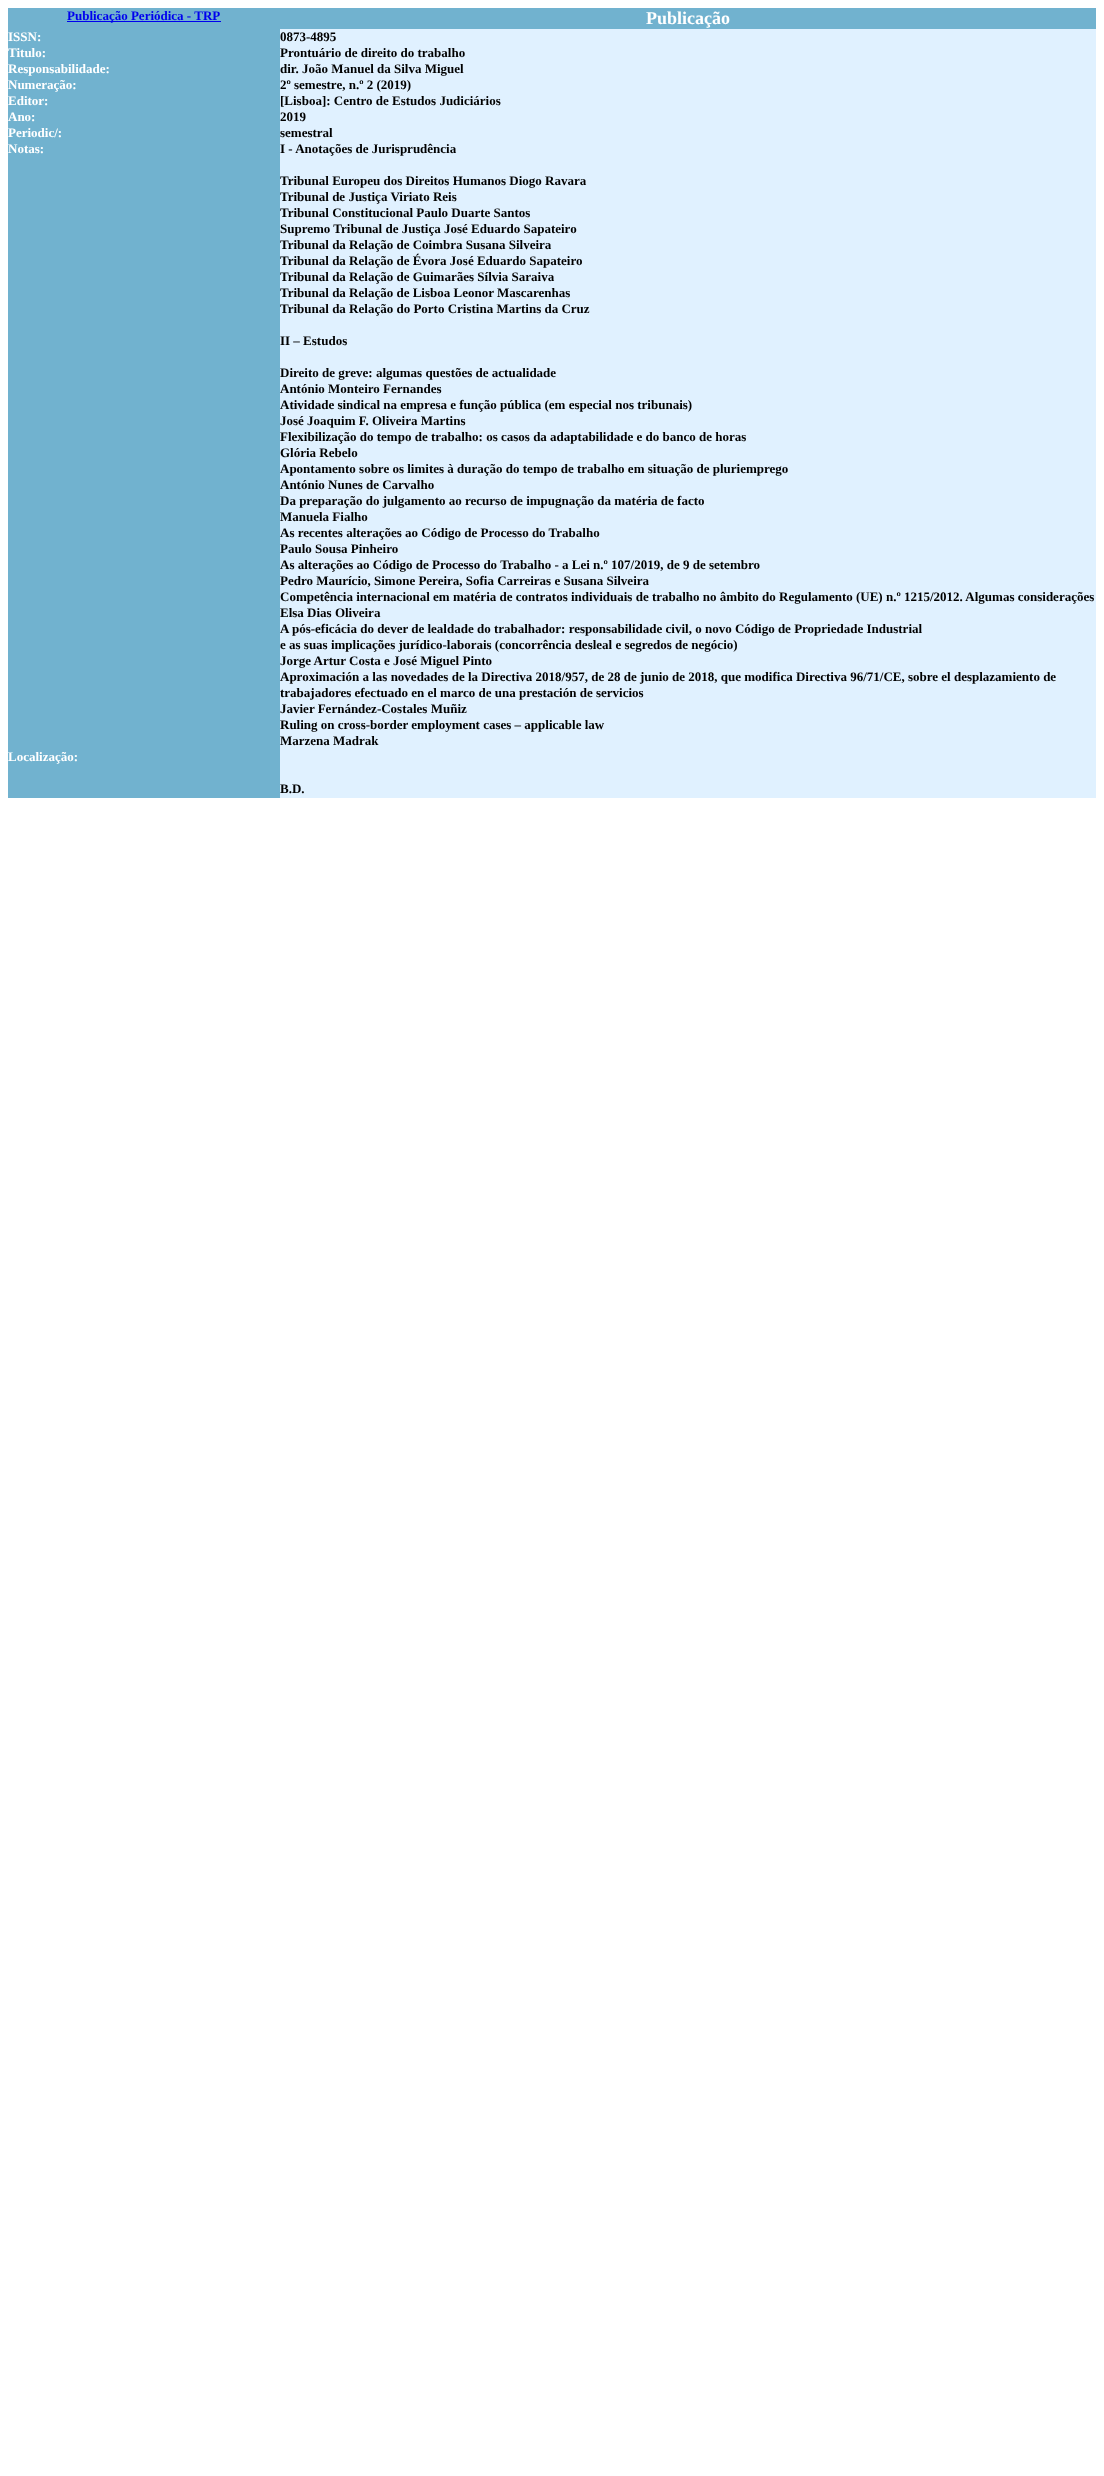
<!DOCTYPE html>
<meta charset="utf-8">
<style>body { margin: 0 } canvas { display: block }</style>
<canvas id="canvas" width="1104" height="2476"></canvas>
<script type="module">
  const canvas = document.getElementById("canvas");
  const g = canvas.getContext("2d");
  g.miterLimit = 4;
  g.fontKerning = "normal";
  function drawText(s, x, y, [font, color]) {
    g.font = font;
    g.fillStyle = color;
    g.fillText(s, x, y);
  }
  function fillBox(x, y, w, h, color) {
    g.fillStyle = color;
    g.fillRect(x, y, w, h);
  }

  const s1 = ["bold 13px Liberation Serif", "#0000EE"];
  const s2 = ["bold 18px Liberation Serif", "#FFFFFF"];
  const s3 = ["bold 13px Liberation Serif", "#FFFFFF"];
  const s4 = ["bold 13px Liberation Serif", "#000000"];

  fillBox(0, 0, 1104, 2476, "#FFFFFF");
  fillBox(8, 8, 1088, 21, "#71B2CF");
  fillBox(67, 21, 154, 1, "#0000EE");
  drawText("Publicação Periódica - TRP", 67, 20, s1);
  drawText("Publicação", 646, 24, s2);
  fillBox(8, 29, 272, 769, "#71B2CF");
  drawText("ISSN:", 8, 41, s3);
  fillBox(280, 29, 816, 769, "#E0F1FF");
  drawText("0873-4895", 280, 41, s4);
  drawText("Titulo:", 8, 57, s3);
  drawText("Prontuário de direito do trabalho", 280, 57, s4);
  drawText("Responsabilidade:", 8, 73, s3);
  drawText("dir. João Manuel da Silva Miguel", 280, 73, s4);
  drawText("Numeração:", 8, 89, s3);
  drawText("2º semestre, n.º 2 (2019)", 280, 89, s4);
  drawText("Editor:", 8, 105, s3);
  drawText("[Lisboa]: Centro de Estudos Judiciários", 280, 105, s4);
  drawText("Ano:", 8, 121, s3);
  drawText("2019", 280, 121, s4);
  drawText("Periodic/:", 8, 137, s3);
  drawText("semestral", 280, 137, s4);
  drawText("Notas:", 8, 153, s3);
  drawText("I - Anotações de Jurisprudência", 280, 153, s4);
  drawText("Tribunal Europeu dos Direitos Humanos Diogo Ravara", 280, 185, s4);
  drawText("Tribunal de Justiça Viriato Reis", 280, 201, s4);
  drawText("Tribunal Constitucional Paulo Duarte Santos", 280, 217, s4);
  drawText("Supremo Tribunal de Justiça José Eduardo Sapateiro", 280, 233, s4);
  drawText("Tribunal da Relação de Coimbra Susana Silveira", 280, 249, s4);
  drawText("Tribunal da Relação de Évora José Eduardo Sapateiro", 280, 265, s4);
  drawText("Tribunal da Relação de Guimarães Sílvia Saraiva", 280, 281, s4);
  drawText("Tribunal da Relação de Lisboa Leonor Mascarenhas", 280, 297, s4);
  drawText("Tribunal da Relação do Porto Cristina Martins da Cruz", 280, 313, s4);
  drawText("II – Estudos", 280, 345, s4);
  drawText("Direito de greve: algumas questões de actualidade", 280, 377, s4);
  drawText("António Monteiro Fernandes", 280, 393, s4);
  drawText("Atividade sindical na empresa e função pública (em especial nos tribunais)", 280, 409, s4);
  drawText("José Joaquim F. Oliveira Martins", 280, 425, s4);
  drawText("Flexibilização do tempo de trabalho: os casos da adaptabilidade e do banco de horas", 280, 441, s4);
  drawText("Glória Rebelo", 280, 457, s4);
  drawText("Apontamento sobre os limites à duração do tempo de trabalho em situação de pluriemprego", 280, 473, s4);
  drawText("António Nunes de Carvalho", 280, 489, s4);
  drawText("Da preparação do julgamento ao recurso de impugnação da matéria de facto", 280, 505, s4);
  drawText("Manuela Fialho", 280, 521, s4);
  drawText("As recentes alterações ao Código de Processo do Trabalho", 280, 537, s4);
  drawText("Paulo Sousa Pinheiro", 280, 553, s4);
  drawText("As alterações ao Código de Processo do Trabalho - a Lei n.º 107/2019, de 9 de setembro", 280, 569, s4);
  drawText("Pedro Maurício, Simone Pereira, Sofia Carreiras e Susana Silveira", 280, 585, s4);
  drawText("Competência internacional em matéria de contratos individuais de trabalho no âmbito do Regulamento (UE) n.º 1215/2012. Algumas considerações", 280, 601, s4);
  drawText("Elsa Dias Oliveira", 280, 617, s4);
  drawText("A pós-eficácia do dever de lealdade do trabalhador: responsabilidade civil, o novo Código de Propriedade Industrial", 280, 633, s4);
  drawText("e as suas implicações jurídico-laborais (concorrência desleal e segredos de negócio)", 280, 649, s4);
  drawText("Jorge Artur Costa e José Miguel Pinto", 280, 665, s4);
  drawText("Aproximación a las novedades de la Directiva 2018/957, de 28 de junio de 2018, que modifica Directiva 96/71/CE, sobre el desplazamiento de", 280, 681, s4);
  drawText("trabajadores efectuado en el marco de una prestación de servicios", 280, 697, s4);
  drawText("Javier Fernández-Costales Muñiz", 280, 713, s4);
  drawText("Ruling on cross-border employment cases – applicable law", 280, 729, s4);
  drawText("Marzena Madrak", 280, 745, s4);
  drawText("Localização:", 8, 761, s3);
  drawText("B.D.", 280, 793, s4);
</script>
